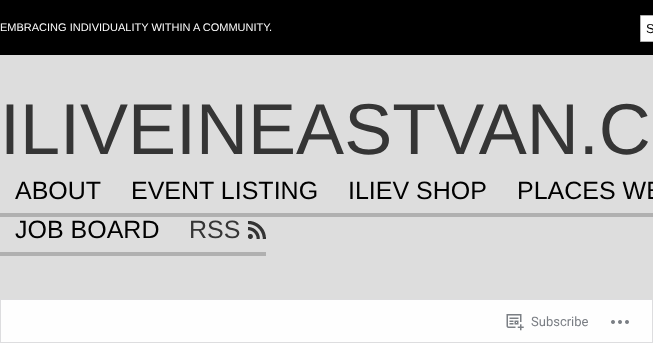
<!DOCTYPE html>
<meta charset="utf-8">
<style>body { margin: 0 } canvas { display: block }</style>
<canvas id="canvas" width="653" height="343"></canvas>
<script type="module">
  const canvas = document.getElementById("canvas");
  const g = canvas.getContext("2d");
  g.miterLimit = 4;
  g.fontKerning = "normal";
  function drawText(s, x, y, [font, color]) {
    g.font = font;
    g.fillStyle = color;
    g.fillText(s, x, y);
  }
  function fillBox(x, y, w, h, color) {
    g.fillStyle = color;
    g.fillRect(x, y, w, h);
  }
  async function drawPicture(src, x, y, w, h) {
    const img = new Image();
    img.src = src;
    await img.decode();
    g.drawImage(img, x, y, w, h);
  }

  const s1 = ["11px Liberation Sans", "#FFFFFF"];
  const s2 = ["13px Liberation Sans", "#000000"];
  const s3 = ["72px Liberation Sans", "#353535"];
  const s4 = ["25px Liberation Sans", "#000000"];
  const s5 = ["25px Liberation Sans", "#353535"];
  const s6 = ["13px Roboto", "#7A7E84"];

  fillBox(0, 0, 653, 343, "#DDDDDD");
  fillBox(0, 299, 653, 44, "#FEFEFE");
  fillBox(0, 0, 653, 55, "#000000");
  drawText("EMBRACING INDIVIDUALITY WITHIN A COMMUNITY.", 0, 31, s1);
  g.beginPath();
  g.rect(640.5, 15.5, 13, 26);
  g.fill();
  g.strokeStyle = "#B0B0B0";
  g.stroke();
  drawText("S", 646, 33, s2);
  drawText("ILIVEINEASTVAN.C", 0, 154, s3);
  fillBox(0, 213, 653, 4, "#B0B0B0");
  drawText("ABOUT", 15, 199, s4);
  drawText("EVENT LISTING", 131, 199, s4);
  drawText("ILIEV SHOP", 348, 199, s4);
  drawText("PLACES WE", 517, 199, s4);
  fillBox(0, 252, 266, 4, "#B0B0B0");
  drawText("JOB BOARD", 15, 238, s4);
  await drawPicture("pic1.png", 248, 221, 18, 18);
  drawText("RSS", 189, 238, s5);
  g.strokeStyle = "rgba(220, 220, 222, 0.98)";
  g.strokeRect(0.5, 299.5, 652, 43);
  await drawPicture("pic2.png", 506, 314, 18, 17);
  drawText("Subscribe", 531, 326, s6);
  await drawPicture("pic3.png", 611, 320, 18, 4);
</script>
